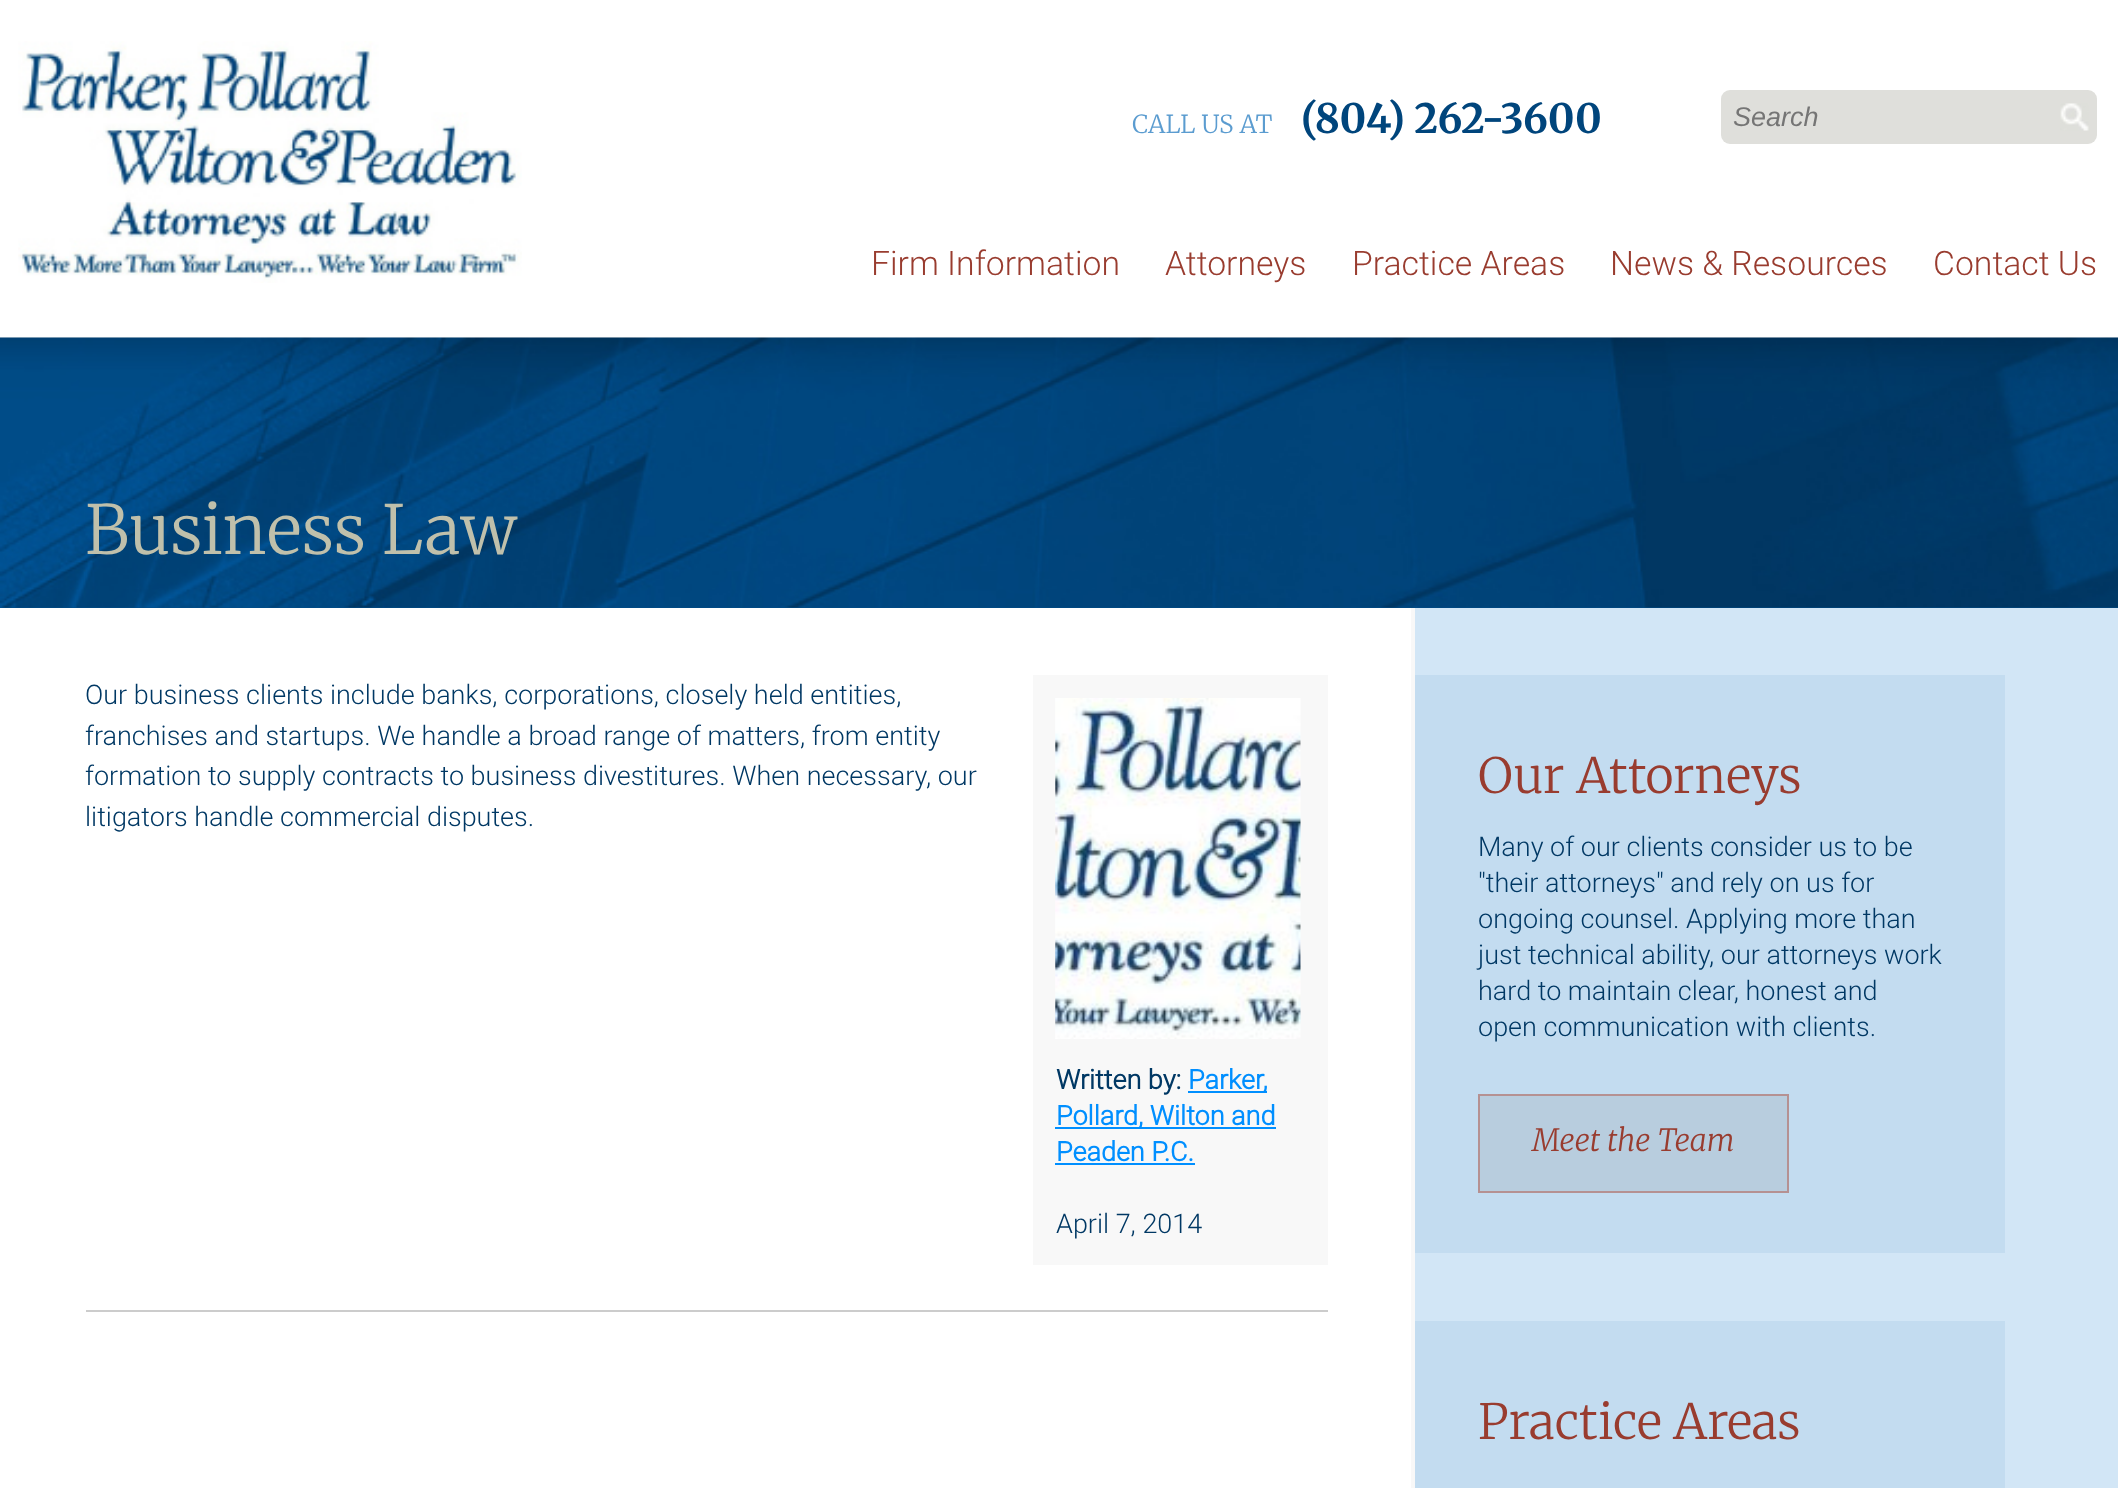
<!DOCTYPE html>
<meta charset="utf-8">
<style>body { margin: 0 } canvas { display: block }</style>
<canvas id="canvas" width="2118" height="1488"></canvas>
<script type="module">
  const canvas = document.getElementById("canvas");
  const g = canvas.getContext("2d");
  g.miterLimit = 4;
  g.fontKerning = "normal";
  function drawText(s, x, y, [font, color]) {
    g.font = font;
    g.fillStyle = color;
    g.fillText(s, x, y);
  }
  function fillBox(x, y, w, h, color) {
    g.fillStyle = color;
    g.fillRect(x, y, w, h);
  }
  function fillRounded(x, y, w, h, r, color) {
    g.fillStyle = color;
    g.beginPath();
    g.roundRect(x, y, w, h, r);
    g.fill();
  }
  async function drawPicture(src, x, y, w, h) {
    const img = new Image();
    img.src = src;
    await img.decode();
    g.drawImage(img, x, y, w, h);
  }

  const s1 = ["300 24.75px Merriweather", "#5B9CD0"];
  const s2 = ["bold 40.5px Merriweather", "#00457C"];
  const s3 = ["italic 27px Liberation Sans", "#757575"];
  const s4 = ["300 33.75px Roboto", "#993C2F"];
  const s5 = ["300 67.5px Merriweather", "#C0C0AB"];
  const s6 = ["300 27px Roboto", "#003864"];
  const s7 = ["bold 27px Roboto", "#003864"];
  const s8 = ["bold 27px Roboto", "#008FFF"];
  const s9 = ["300 48.5px Merriweather", "#993C2F"];
  const s10 = ["italic 300 30.5px Merriweather", "#993C2F"];

  fillBox(0, 0, 2118, 1488, "#F8F8F8");
  fillBox(0, 0, 2118, 338, "#FFFFFF");
  await drawPicture("pic1.png", 18, 41, 504, 242);
  drawText("CALL US AT", 1132, 133, s1);
  drawText("(804) 262-3600", 1301, 133, s2);
  fillRounded(1721, 90, 376, 54, 9, "#DFDFDB");
  await drawPicture("pic2.png", 2060, 103, 29, 28);
  drawText("Search", 1733, 126, s3);
  drawText("Firm Information", 871, 275, s4);
  drawText("Attorneys", 1165, 275, s4);
  drawText("Practice Areas", 1352, 275, s4);
  drawText("News & Resources", 1610, 275, s4);
  drawText("Contact Us", 1933, 275, s4);
  await drawPicture("pic3.png", 0, 337, 2118, 1);
  fillBox(0, 607, 2118, 1, "#004C89");
  await drawPicture("pic4.png", 0, 337, 2118, 271);
  drawText("Business Law", 85, 554, s5);
  fillBox(0, 608, 1411, 880, "#FFFFFF");
  drawText("Our business clients include banks, corporations, closely held entities,", 85, 704, s6);
  drawText("franchises and startups. We handle a broad range of matters, from entity", 85, 745, s6);
  drawText("formation to supply contracts to business divestitures. When necessary, our", 85, 785, s6);
  drawText("litigators handle commercial disputes.", 85, 826, s6);
  fillBox(1033, 675, 295, 590, "#F8F8F8");
  await drawPicture("pic5.png", 1055, 698, 246, 341);
  drawText("Written by:", 1056, 1089, s7);
  fillBox(1188, 1091, 79, 2, "#008FFF");
  drawText("Parker,", 1188, 1089, s8);
  fillBox(1055, 1127, 221, 2, "#008FFF");
  drawText("Pollard, Wilton and", 1056, 1125, s8);
  drawText("Peaden P.C.", 1056, 1161, s8);
  fillBox(1055, 1163, 140, 2, "#008FFF");
  drawText("April 7, 2014", 1056, 1233, s6);
  fillBox(86, 1310, 1242, 2, "#CCCCCC");
  fillBox(1415, 608, 703, 880, "#D2E6F6");
  fillBox(1415, 675, 590, 578, "#C3DCF0");
  drawText("Our Attorneys", 1478, 793, s9);
  drawText("Many of our clients consider us to be", 1478, 856, s6);
  drawText("\"their attorneys\" and rely on us for", 1478, 892, s6);
  drawText("ongoing counsel. Applying more than", 1478, 928, s6);
  drawText("just technical ability, our attorneys work", 1478, 964, s6);
  drawText("hard to maintain clear, honest and", 1478, 1000, s6);
  drawText("open communication with clients.", 1478, 1036, s6);
  g.fillStyle = "#B8CDDE";
  g.beginPath();
  g.rect(1479, 1095, 309, 97);
  g.fill();
  g.strokeStyle = "#B59192";
  g.lineWidth = 2;
  g.stroke();
  drawText("Meet the Team", 1532, 1151, s10);
  fillBox(1415, 1321, 590, 167, "#C3DCF0");
  drawText("Practice Areas", 1478, 1439, s9);
</script>
